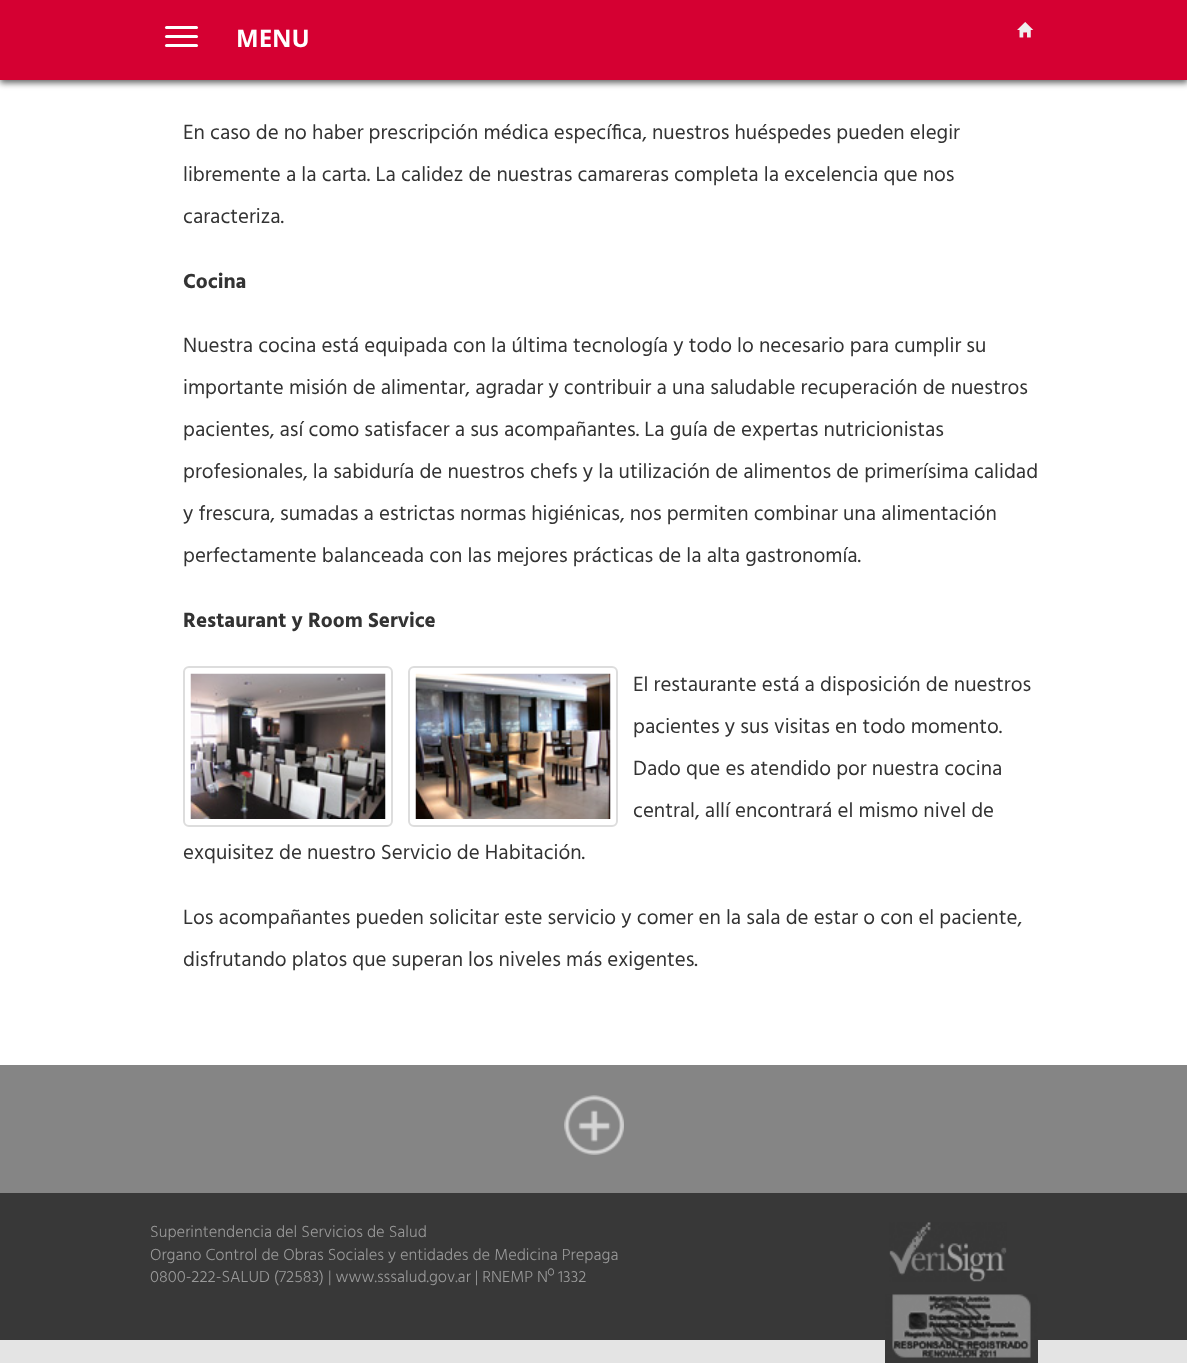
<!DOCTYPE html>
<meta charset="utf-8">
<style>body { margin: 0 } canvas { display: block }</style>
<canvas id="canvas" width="1187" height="1363"></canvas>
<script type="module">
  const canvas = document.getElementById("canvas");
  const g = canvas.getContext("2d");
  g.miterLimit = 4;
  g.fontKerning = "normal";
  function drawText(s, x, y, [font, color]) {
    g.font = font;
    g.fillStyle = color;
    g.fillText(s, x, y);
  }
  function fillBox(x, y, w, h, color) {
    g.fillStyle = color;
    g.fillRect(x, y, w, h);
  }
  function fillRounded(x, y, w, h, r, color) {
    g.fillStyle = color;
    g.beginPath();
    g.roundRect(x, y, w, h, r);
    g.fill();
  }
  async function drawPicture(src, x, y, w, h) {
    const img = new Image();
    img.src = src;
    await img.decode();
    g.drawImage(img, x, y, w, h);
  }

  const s1 = ["bold 24px Open Sans", "#FFFFFF"];
  const s2 = ["21px Hind", "#333333"];
  const s3 = ["bold 21px Hind", "#333333"];
  const s4 = ["300 16.5px Hind", "#999999"];

  fillBox(0, 0, 1187, 1363, "#E4E4E4");
  fillBox(0, 80, 1187, 985, "#FFFFFF");
  g.fillStyle = "rgba(0, 0, 0, 0.6)";
  g.filter = "blur(3px)";
  g.beginPath();
  g.rect(0, 3, 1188, 80);
  g.fill();
  g.filter = "none";
  fillBox(0, 0, 1187, 80, "#D50032");
  fillRounded(165, 26, 33, 3, 1.5, "#FFFFFF");
  fillRounded(165, 35, 33, 3, 1.5, "#FFFFFF");
  fillRounded(165, 44, 33, 3, 1.5, "#FFFFFF");
  drawText("MENU", 236, 47, s1);
  await drawPicture("pic1.png", 1017, 22, 17, 16);
  drawText("En caso de no haber prescripción médica específica, nuestros huéspedes pueden elegir", 183, 139, s2);
  drawText("libremente a la carta. La calidez de nuestras camareras completa la excelencia que nos", 183, 181, s2);
  drawText("caracteriza.", 183, 223, s2);
  drawText("Cocina", 183, 288, s3);
  drawText("Nuestra cocina está equipada con la última tecnología y todo lo necesario para cumplir su", 183, 352, s2);
  drawText("importante misión de alimentar, agradar y contribuir a una saludable recuperación de nuestros", 183, 394, s2);
  drawText("pacientes, así como satisfacer a sus acompañantes. La guía de expertas nutricionistas", 183, 436, s2);
  drawText("profesionales, la sabiduría de nuestros chefs y la utilización de alimentos de primerísima calidad", 183, 478, s2);
  drawText("y frescura, sumadas a estrictas normas higiénicas, nos permiten combinar una alimentación", 183, 520, s2);
  drawText("perfectamente balanceada con las mejores prácticas de la alta gastronomía.", 183, 562, s2);
  drawText("Restaurant y Room Service", 183, 627, s3);
  g.beginPath();
  g.roundRect(184, 667, 208, 159, 5);
  g.strokeStyle = "#DDDDDD";
  g.lineWidth = 2;
  g.stroke();
  await drawPicture("pic2.png", 190, 673, 196, 146);
  g.beginPath();
  g.roundRect(409, 667, 208, 159, 5);
  g.stroke();
  await drawPicture("pic3.png", 415, 673, 196, 146);
  drawText("El restaurante está a disposición de nuestros", 633, 691, s2);
  drawText("pacientes y sus visitas en todo momento.", 633, 733, s2);
  drawText("Dado que es atendido por nuestra cocina", 633, 775, s2);
  drawText("central, allí encontrará el mismo nivel de", 633, 817, s2);
  drawText("exquisitez de nuestro Servicio de Habitación.", 183, 859, s2);
  drawText("Los acompañantes pueden solicitar este servicio y comer en la sala de estar o con el paciente,", 183, 924, s2);
  drawText("disfrutando platos que superan los niveles más exigentes.", 183, 966, s2);
  fillBox(0, 1065, 1187, 128, "#858585");
  await drawPicture("pic4.png", 564, 1095, 60, 60);
  fillBox(0, 1193, 1187, 147, "#383838");
  drawText("Superintendencia del Servicios de Salud", 150, 1237, s4);
  drawText("Organo Control de Obras Sociales y entidades de Medicina Prepaga", 150, 1260, s4);
  drawText("0800-222-SALUD (72583) | www.sssalud.gov.ar | RNEMP Nº 1332", 150, 1282, s4);
  await drawPicture("pic5.png", 889, 1222, 118, 60);
  await drawPicture("pic6.png", 885, 1294, 153, 69);
</script>
